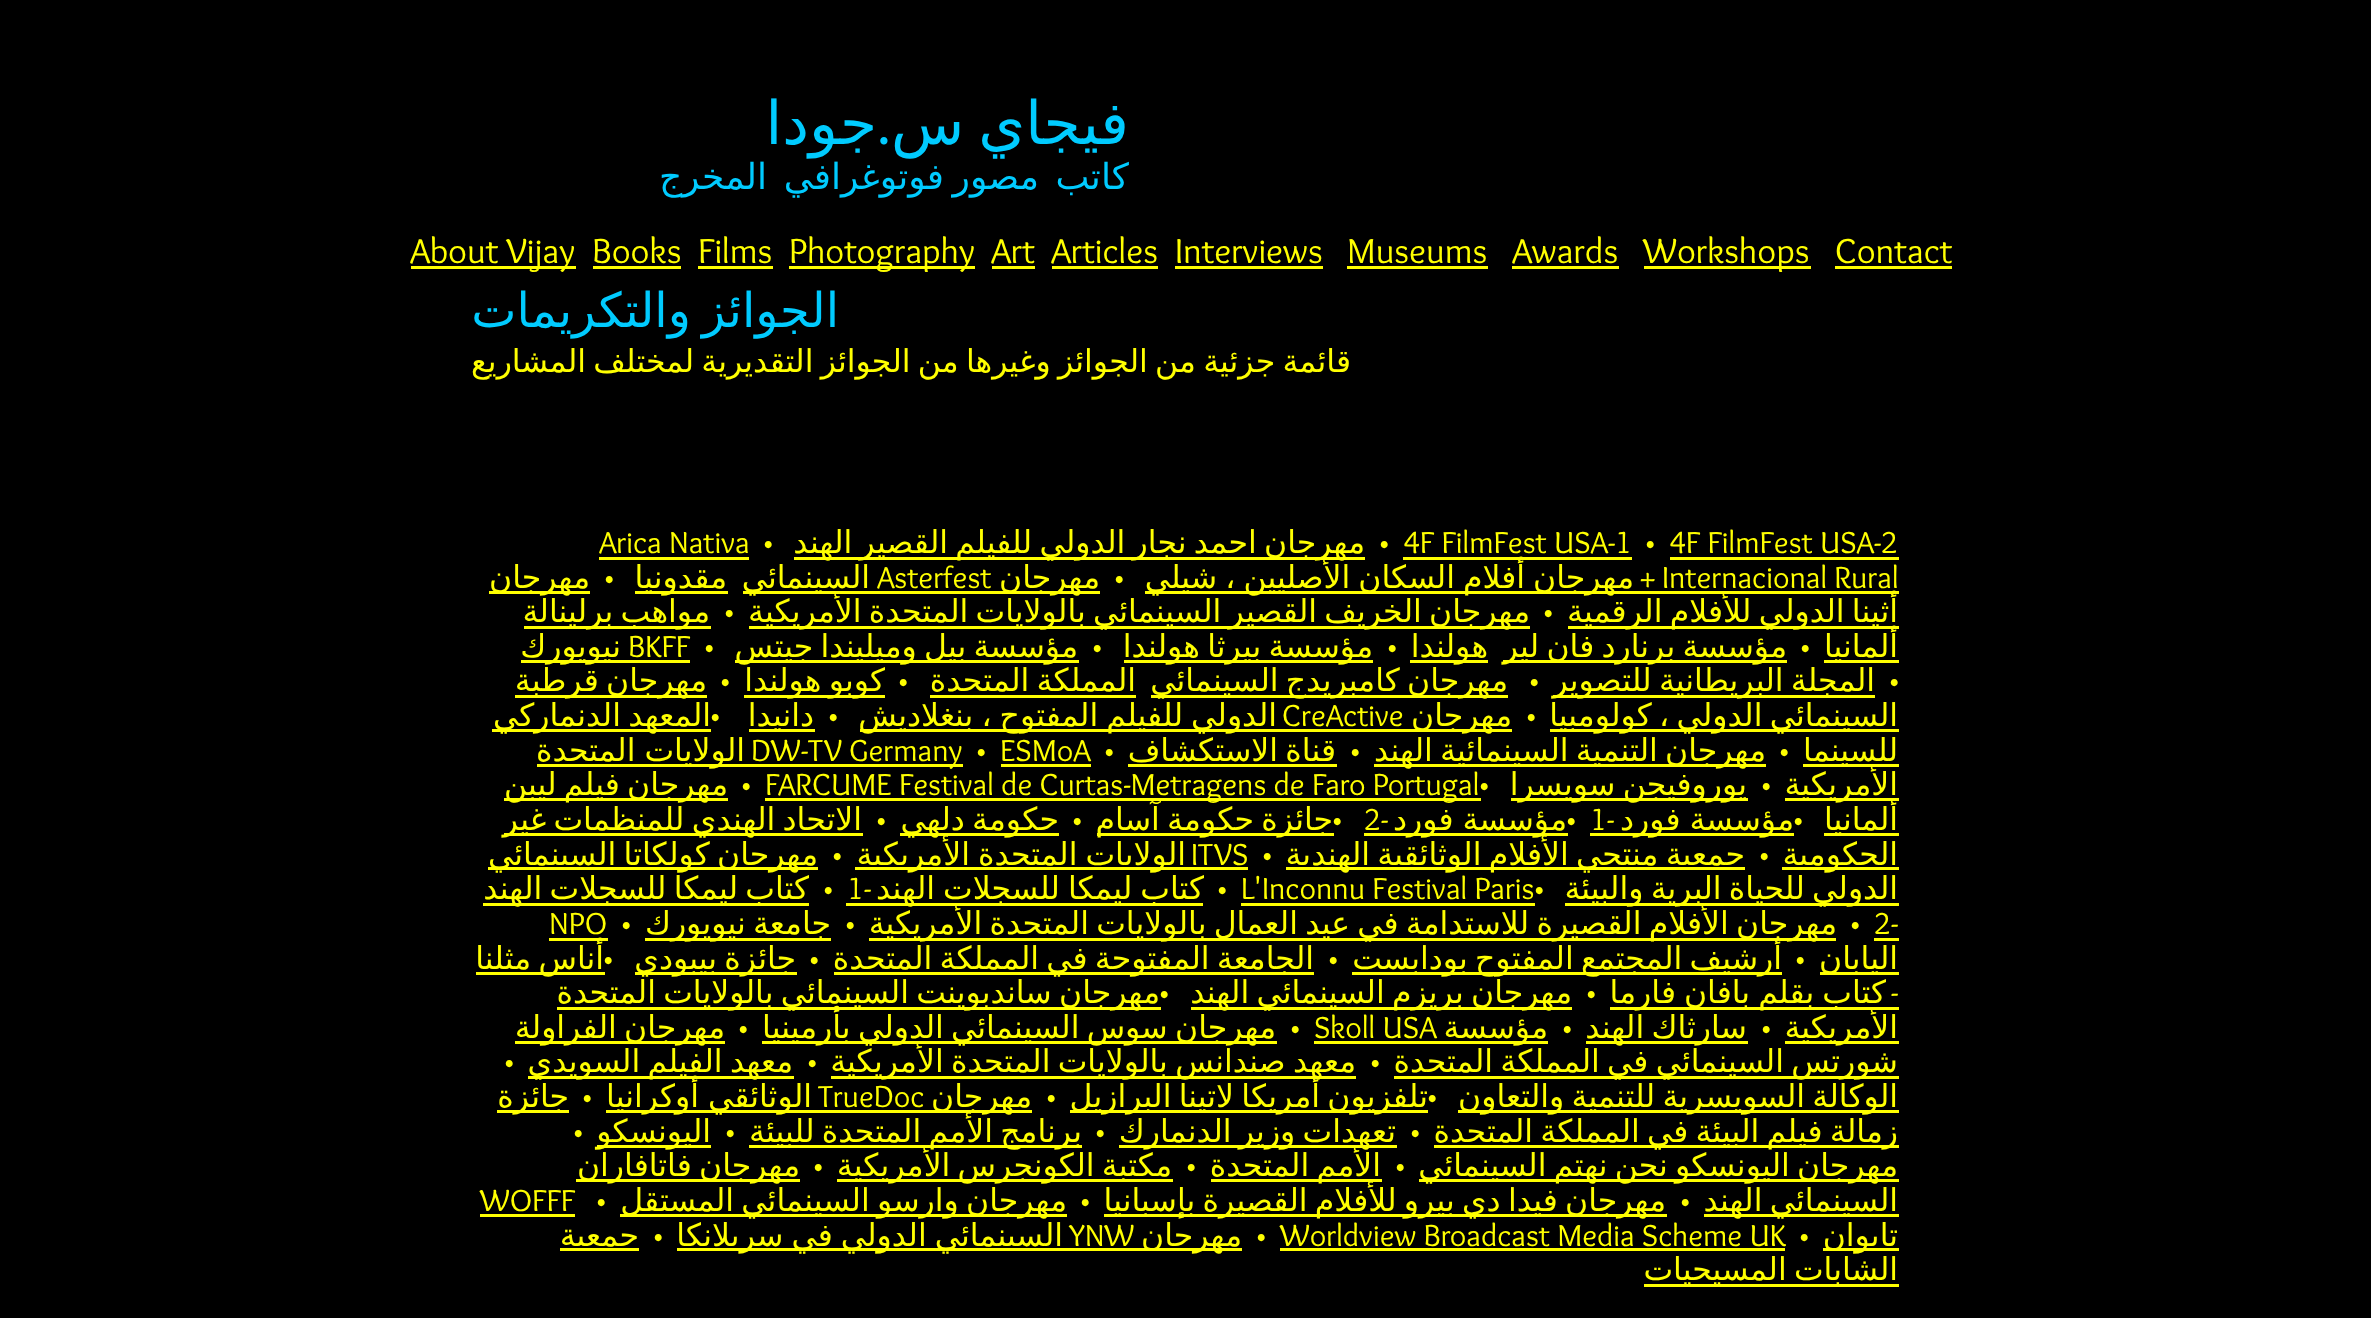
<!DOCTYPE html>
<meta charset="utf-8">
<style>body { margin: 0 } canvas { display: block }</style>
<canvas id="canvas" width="2371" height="1318"></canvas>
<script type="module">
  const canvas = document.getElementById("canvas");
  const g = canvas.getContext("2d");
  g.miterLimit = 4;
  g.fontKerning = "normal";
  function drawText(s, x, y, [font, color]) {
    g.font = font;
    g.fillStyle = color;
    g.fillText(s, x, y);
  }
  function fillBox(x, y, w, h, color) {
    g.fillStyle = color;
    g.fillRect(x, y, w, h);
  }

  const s1 = ["60px DejaVu Sans", "#00CBFF"];
  const s2 = ["60px Overlock", "#00CBFF"];
  const s3 = ["36px DejaVu Sans", "#00CBFF"];
  const s4 = ["36px Overlock", "#FFFF00"];
  const s5 = ["48px DejaVu Sans", "#00CBFF"];
  const s6 = ["31.5px DejaVu Sans", "#FFFF00"];
  const s7 = ["31.5px Overlock", "#FFFF00"];

  fillBox(0, 0, 2371, 1318, "#000000");
  g.wordSpacing = "-5px";
  g.direction = "rtl";
  drawText("فيجاي س", 1129, 144, s1);
  g.wordSpacing = "0px";
  drawText(".", 891, 144, s2);
  drawText("جودا", 877, 144, s1);
  drawText("كاتب", 1129, 189, s3);
  g.wordSpacing = "-3px";
  drawText("مصور فوتوغرافي", 1039, 189, s3);
  g.wordSpacing = "0px";
  drawText("المخرج", 767, 189, s3);
  g.direction = "ltr";
  drawText("Contact", 1835, 263, s4);
  fillBox(1835, 266, 117, 3, "#FFFF00");
  fillBox(1644, 266, 167, 3, "#FFFF00");
  drawText("Workshops", 1643, 263, s4);
  drawText("Awards", 1512, 263, s4);
  fillBox(1512, 266, 107, 3, "#FFFF00");
  drawText("Museums", 1347, 263, s4);
  fillBox(1347, 266, 141, 3, "#FFFF00");
  drawText("Interviews", 1175, 263, s4);
  fillBox(1175, 266, 148, 3, "#FFFF00");
  drawText("Articles", 1051, 263, s4);
  fillBox(1052, 266, 106, 3, "#FFFF00");
  drawText("Art", 991, 263, s4);
  fillBox(992, 266, 43, 3, "#FFFF00");
  fillBox(789, 266, 186, 3, "#FFFF00");
  drawText("Photography", 789, 263, s4);
  drawText("Films", 698, 263, s4);
  fillBox(698, 266, 75, 3, "#FFFF00");
  drawText("Books", 592, 263, s4);
  fillBox(593, 266, 88, 3, "#FFFF00");
  fillBox(411, 266, 165, 3, "#FFFF00");
  drawText("About Vijay", 410, 263, s4);
  g.wordSpacing = "-4px";
  g.direction = "rtl";
  drawText("الجوائز والتكريمات", 839, 327, s5);
  g.wordSpacing = "-2.75px";
  drawText("قائمة جزئية من الجوائز وغيرها من الجوائز التقديرية لمختلف المشاريع", 1351, 372, s6);
  g.wordSpacing = "0px";
  g.direction = "ltr";
  drawText("4F FilmFest USA-2", 1669, 553, s7);
  fillBox(1670, 557, 229, 3, "#FFFF00");
  drawText("•", 1646, 553, s7);
  drawText("4F FilmFest USA-1", 1403, 553, s7);
  fillBox(1403, 557, 229, 3, "#FFFF00");
  drawText("•", 1380, 553, s7);
  fillBox(794, 557, 571, 3, "#FFFF00");
  g.wordSpacing = "-2.75px";
  g.direction = "rtl";
  drawText("مهرجان احمد نجار الدولي للفيلم القصير الهند", 1365, 553, s6);
  g.wordSpacing = "0px";
  g.direction = "ltr";
  drawText("•", 764, 553, s7);
  drawText("Arica Nativa", 599, 553, s7);
  fillBox(599, 557, 150, 3, "#FFFF00");
  drawText("Internacional Rural", 1662, 588, s7);
  g.direction = "rtl";
  drawText("+", 1656, 588, s7);
  fillBox(1145, 591, 754, 3, "#FFFF00");
  g.wordSpacing = "-2px";
  drawText("مهرجان أفلام السكان الأصليين ، شيلي", 1634, 588, s6);
  g.wordSpacing = "0px";
  g.direction = "ltr";
  drawText("•", 1115, 588, s7);
  fillBox(743, 591, 357, 3, "#FFFF00");
  g.direction = "rtl";
  drawText("مهرجان", 1100, 588, s6);
  g.direction = "ltr";
  drawText("Asterfest", 877, 588, s7);
  g.direction = "rtl";
  drawText("السينمائي", 870, 588, s6);
  fillBox(635, 591, 93, 3, "#FFFF00");
  drawText("مقدونيا", 727, 588, s6);
  g.direction = "ltr";
  drawText("•", 605, 588, s7);
  fillBox(489, 591, 101, 3, "#FFFF00");
  g.direction = "rtl";
  drawText("مهرجان", 590, 588, s6);
  fillBox(1568, 626, 331, 3, "#FFFF00");
  g.wordSpacing = "-2.75px";
  drawText("أثينا الدولي للأفلام الرقمية", 1898, 622, s6);
  g.wordSpacing = "0px";
  g.direction = "ltr";
  drawText("•", 1544, 622, s7);
  fillBox(749, 626, 781, 3, "#FFFF00");
  g.wordSpacing = "-2.75px";
  g.direction = "rtl";
  drawText("مهرجان الخريف القصير السينمائي بالولايات المتحدة الأمريكية", 1530, 622, s6);
  g.wordSpacing = "0px";
  g.direction = "ltr";
  drawText("•", 725, 622, s7);
  fillBox(524, 626, 187, 3, "#FFFF00");
  g.wordSpacing = "-2.75px";
  g.direction = "rtl";
  drawText("مواهب برلينالة", 710, 622, s6);
  fillBox(1824, 660, 75, 3, "#FFFF00");
  g.wordSpacing = "0px";
  drawText("ألمانيا", 1898, 657, s6);
  g.direction = "ltr";
  drawText("•", 1801, 657, s7);
  fillBox(1503, 660, 284, 3, "#FFFF00");
  g.wordSpacing = "-2.75px";
  g.direction = "rtl";
  drawText("مؤسسة برنارد فان لير", 1787, 657, s6);
  fillBox(1410, 660, 78, 3, "#FFFF00");
  g.wordSpacing = "0px";
  drawText("هولندا", 1488, 657, s6);
  g.direction = "ltr";
  drawText("•", 1388, 657, s7);
  fillBox(1124, 660, 249, 3, "#FFFF00");
  g.wordSpacing = "-2.75px";
  g.direction = "rtl";
  drawText("مؤسسة بيرثا هولندا", 1373, 657, s6);
  g.wordSpacing = "0px";
  g.direction = "ltr";
  drawText("•", 1093, 657, s7);
  fillBox(735, 660, 344, 3, "#FFFF00");
  g.wordSpacing = "-2.75px";
  g.direction = "rtl";
  drawText("مؤسسة بيل وميليندا جيتس", 1078, 657, s6);
  g.wordSpacing = "0px";
  g.direction = "ltr";
  drawText("•", 705, 657, s7);
  drawText("BKFF", 628, 657, s7);
  fillBox(521, 660, 169, 3, "#FFFF00");
  g.direction = "rtl";
  drawText("نيويورك", 621, 657, s6);
  g.direction = "ltr";
  drawText("•", 1890, 691, s7);
  fillBox(1553, 695, 322, 3, "#FFFF00");
  g.wordSpacing = "-2.75px";
  g.direction = "rtl";
  drawText("المجلة البريطانية للتصوير", 1875, 691, s6);
  g.wordSpacing = "0px";
  g.direction = "ltr";
  drawText("•", 1530, 691, s7);
  fillBox(1151, 695, 357, 3, "#FFFF00");
  g.wordSpacing = "-2.75px";
  g.direction = "rtl";
  drawText("مهرجان كامبريدج السينمائي", 1508, 691, s6);
  drawText("المملكة المتحدة", 1136, 691, s6);
  fillBox(930, 695, 206, 3, "#FFFF00");
  g.wordSpacing = "0px";
  g.direction = "ltr";
  drawText("•", 899, 691, s7);
  fillBox(744, 695, 141, 3, "#FFFF00");
  g.wordSpacing = "-2.75px";
  g.direction = "rtl";
  drawText("كوبو هولندا", 885, 691, s6);
  g.wordSpacing = "0px";
  g.direction = "ltr";
  drawText("•", 721, 691, s7);
  fillBox(515, 695, 192, 3, "#FFFF00");
  g.wordSpacing = "-2.75px";
  g.direction = "rtl";
  drawText("مهرجان قرطبة", 707, 691, s6);
  fillBox(1550, 729, 349, 3, "#FFFF00");
  drawText("السينمائي الدولي ، كولومبيا", 1898, 726, s6);
  g.wordSpacing = "0px";
  g.direction = "ltr";
  drawText("•", 1527, 726, s7);
  fillBox(860, 729, 652, 3, "#FFFF00");
  g.direction = "rtl";
  drawText("مهرجان", 1512, 726, s6);
  g.direction = "ltr";
  drawText("CreActive", 1282, 726, s7);
  g.wordSpacing = "-2px";
  g.direction = "rtl";
  drawText("الدولي للفيلم المفتوح ، بنغلاديش", 1277, 726, s6);
  g.wordSpacing = "0px";
  g.direction = "ltr";
  drawText("•", 829, 726, s7);
  fillBox(749, 729, 66, 3, "#FFFF00");
  g.direction = "rtl";
  drawText("دانيدا", 814, 726, s6);
  g.direction = "ltr";
  drawText("•", 711, 726, s7);
  fillBox(492, 729, 219, 3, "#FFFF00");
  g.wordSpacing = "-2.75px";
  g.direction = "rtl";
  drawText("المعهد الدنماركي", 711, 726, s6);
  fillBox(1803, 764, 96, 3, "#FFFF00");
  g.wordSpacing = "0px";
  drawText("للسينما", 1898, 761, s6);
  g.direction = "ltr";
  drawText("•", 1780, 761, s7);
  fillBox(1374, 764, 392, 3, "#FFFF00");
  g.wordSpacing = "-2.75px";
  g.direction = "rtl";
  drawText("مهرجان التنمية السينمائية الهند", 1766, 761, s6);
  g.wordSpacing = "0px";
  g.direction = "ltr";
  drawText("•", 1351, 761, s7);
  g.wordSpacing = "-2.75px";
  g.direction = "rtl";
  drawText("قناة الاستكشاف", 1336, 761, s6);
  fillBox(1128, 764, 209, 3, "#FFFF00");
  g.wordSpacing = "0px";
  g.direction = "ltr";
  drawText("•", 1105, 761, s7);
  drawText("ESMoA", 1000, 761, s7);
  fillBox(1001, 764, 90, 3, "#FFFF00");
  drawText("•", 977, 761, s7);
  fillBox(537, 764, 426, 3, "#FFFF00");
  drawText("DW-TV Germany", 751, 761, s7);
  g.wordSpacing = "-1px";
  g.direction = "rtl";
  drawText("الولايات المتحدة", 745, 761, s6);
  fillBox(1785, 798, 114, 3, "#FFFF00");
  g.wordSpacing = "0px";
  drawText("الأمريكية", 1898, 795, s6);
  g.direction = "ltr";
  drawText("•", 1762, 795, s7);
  fillBox(1511, 798, 237, 3, "#FFFF00");
  g.wordSpacing = "-2.75px";
  g.direction = "rtl";
  drawText("يوروفيجن سويسرا", 1747, 795, s6);
  g.wordSpacing = "0px";
  g.direction = "ltr";
  drawText("•", 1480, 795, s7);
  fillBox(765, 798, 716, 3, "#FFFF00");
  drawText("FARCUME Festival de Curtas-Metragens de Faro Portugal", 765, 795, s7);
  drawText("•", 742, 795, s7);
  fillBox(504, 798, 224, 3, "#FFFF00");
  g.wordSpacing = "-2.75px";
  g.direction = "rtl";
  drawText("مهرجان فيلم ليبن", 728, 795, s6);
  fillBox(1824, 833, 75, 3, "#FFFF00");
  g.wordSpacing = "0px";
  drawText("ألمانيا", 1898, 830, s6);
  g.direction = "ltr";
  drawText("•", 1794, 830, s7);
  fillBox(1590, 833, 204, 3, "#FFFF00");
  g.wordSpacing = "-1px";
  g.direction = "rtl";
  drawText("مؤسسة فورد", 1794, 830, s6);
  g.wordSpacing = "0px";
  drawText("-", 1614, 830, s7);
  g.direction = "ltr";
  drawText("1", 1590, 830, s7);
  drawText("•", 1567, 830, s7);
  fillBox(1364, 833, 204, 3, "#FFFF00");
  g.wordSpacing = "-1px";
  g.direction = "rtl";
  drawText("مؤسسة فورد", 1567, 830, s6);
  g.wordSpacing = "0px";
  drawText("-", 1388, 830, s7);
  g.direction = "ltr";
  drawText("2", 1364, 830, s7);
  drawText("•", 1333, 830, s7);
  fillBox(1097, 833, 237, 3, "#FFFF00");
  g.wordSpacing = "-2.75px";
  g.direction = "rtl";
  drawText("جائزة حكومة آسام", 1333, 830, s6);
  g.wordSpacing = "0px";
  g.direction = "ltr";
  drawText("•", 1073, 830, s7);
  fillBox(900, 833, 159, 3, "#FFFF00");
  g.wordSpacing = "-2.75px";
  g.direction = "rtl";
  drawText("حكومة دلهي", 1059, 830, s6);
  g.wordSpacing = "0px";
  g.direction = "ltr";
  drawText("•", 877, 830, s7);
  fillBox(504, 833, 359, 3, "#FFFF00");
  g.wordSpacing = "-2.75px";
  g.direction = "rtl";
  drawText("الاتحاد الهندي للمنظمات غير", 862, 830, s6);
  fillBox(1782, 867, 117, 3, "#FFFF00");
  g.wordSpacing = "0px";
  drawText("الحكومية", 1898, 865, s6);
  g.direction = "ltr";
  drawText("•", 1760, 865, s7);
  fillBox(1286, 867, 459, 3, "#FFFF00");
  g.wordSpacing = "-2.75px";
  g.direction = "rtl";
  drawText("جمعية منتجي الأفلام الوثائقية الهندية", 1745, 865, s6);
  g.wordSpacing = "0px";
  g.direction = "ltr";
  drawText("•", 1263, 865, s7);
  drawText("ITVS", 1191, 865, s7);
  fillBox(855, 867, 393, 3, "#FFFF00");
  g.wordSpacing = "-2px";
  g.direction = "rtl";
  drawText("الولايات المتحدة الأمريكية", 1186, 865, s6);
  g.wordSpacing = "0px";
  g.direction = "ltr";
  drawText("•", 833, 865, s7);
  fillBox(488, 867, 330, 3, "#FFFF00");
  g.wordSpacing = "-2.75px";
  g.direction = "rtl";
  drawText("مهرجان كولكاتا السينمائي", 818, 865, s6);
  fillBox(1565, 903, 334, 3, "#FFFF00");
  drawText("الدولي للحياة البرية والبيئة", 1898, 899, s6);
  g.wordSpacing = "0px";
  g.direction = "ltr";
  drawText("•", 1535, 899, s7);
  fillBox(1241, 903, 294, 3, "#FFFF00");
  drawText("L'Inconnu Festival Paris", 1241, 899, s7);
  drawText("•", 1218, 899, s7);
  fillBox(846, 903, 357, 3, "#FFFF00");
  g.wordSpacing = "-2px";
  g.direction = "rtl";
  drawText("كتاب ليمكا للسجلات الهند", 1204, 899, s6);
  g.wordSpacing = "0px";
  drawText("-", 871, 899, s7);
  g.direction = "ltr";
  drawText("1", 847, 899, s7);
  drawText("•", 824, 899, s7);
  fillBox(483, 903, 326, 3, "#FFFF00");
  g.wordSpacing = "-2.75px";
  g.direction = "rtl";
  drawText("كتاب ليمكا للسجلات الهند", 809, 899, s6);
  g.wordSpacing = "0px";
  g.direction = "ltr";
  drawText("2-", 1874, 934, s7);
  fillBox(1874, 938, 25, 3, "#FFFF00");
  drawText("•", 1851, 934, s7);
  fillBox(869, 938, 967, 3, "#FFFF00");
  g.wordSpacing = "-2.75px";
  g.direction = "rtl";
  drawText("مهرجان الأفلام القصيرة للاستدامة في عيد العمال بالولايات المتحدة الأمريكية", 1837, 934, s6);
  g.wordSpacing = "0px";
  g.direction = "ltr";
  drawText("•", 846, 934, s7);
  fillBox(645, 938, 186, 3, "#FFFF00");
  g.wordSpacing = "-2.75px";
  g.direction = "rtl";
  drawText("جامعة نيويورك", 831, 934, s6);
  g.wordSpacing = "0px";
  g.direction = "ltr";
  drawText("•", 622, 934, s7);
  drawText("NPO", 549, 934, s7);
  fillBox(549, 938, 59, 3, "#FFFF00");
  fillBox(1820, 972, 79, 3, "#FFFF00");
  g.direction = "rtl";
  drawText("اليابان", 1898, 969, s6);
  g.direction = "ltr";
  drawText("•", 1796, 969, s7);
  fillBox(1352, 972, 430, 3, "#FFFF00");
  g.wordSpacing = "-2.75px";
  g.direction = "rtl";
  drawText("أرشيف المجتمع المفتوح بودابست", 1782, 969, s6);
  g.wordSpacing = "0px";
  g.direction = "ltr";
  drawText("•", 1329, 969, s7);
  fillBox(834, 972, 480, 3, "#FFFF00");
  g.wordSpacing = "-2.75px";
  g.direction = "rtl";
  drawText("الجامعة المفتوحة في المملكة المتحدة", 1314, 969, s6);
  g.wordSpacing = "0px";
  g.direction = "ltr";
  drawText("•", 810, 969, s7);
  fillBox(635, 972, 162, 3, "#FFFF00");
  g.wordSpacing = "-2.75px";
  g.direction = "rtl";
  drawText("جائزة بيبودي", 796, 969, s6);
  g.wordSpacing = "0px";
  g.direction = "ltr";
  drawText("•", 604, 969, s7);
  fillBox(476, 972, 129, 3, "#FFFF00");
  g.wordSpacing = "-2.75px";
  g.direction = "rtl";
  drawText("أناس مثلنا", 604, 969, s6);
  g.wordSpacing = "0px";
  drawText("-", 1898, 1003, s7);
  fillBox(1610, 1007, 289, 3, "#FFFF00");
  g.wordSpacing = "-2px";
  drawText("كتاب بقلم بافان فارما", 1886, 1003, s6);
  g.wordSpacing = "0px";
  g.direction = "ltr";
  drawText("•", 1587, 1003, s7);
  fillBox(1191, 1007, 381, 3, "#FFFF00");
  g.wordSpacing = "-2.75px";
  g.direction = "rtl";
  drawText("مهرجان بريزم السينمائي الهند", 1572, 1003, s6);
  g.wordSpacing = "0px";
  g.direction = "ltr";
  drawText("•", 1160, 1003, s7);
  fillBox(557, 1007, 604, 3, "#FFFF00");
  g.wordSpacing = "-2.75px";
  g.direction = "rtl";
  drawText("مهرجان ساندبوينت السينمائي بالولايات المتحدة", 1160, 1003, s6);
  fillBox(1785, 1041, 114, 3, "#FFFF00");
  g.wordSpacing = "0px";
  drawText("الأمريكية", 1898, 1038, s6);
  g.direction = "ltr";
  drawText("•", 1762, 1038, s7);
  fillBox(1586, 1041, 162, 3, "#FFFF00");
  g.wordSpacing = "-2.75px";
  g.direction = "rtl";
  drawText("سارثاك الهند", 1747, 1038, s6);
  g.wordSpacing = "0px";
  g.direction = "ltr";
  drawText("•", 1563, 1038, s7);
  fillBox(1314, 1041, 234, 3, "#FFFF00");
  g.direction = "rtl";
  drawText("مؤسسة", 1548, 1038, s6);
  g.direction = "ltr";
  drawText("Skoll USA", 1314, 1038, s7);
  drawText("•", 1291, 1038, s7);
  fillBox(762, 1041, 515, 3, "#FFFF00");
  g.wordSpacing = "-2.75px";
  g.direction = "rtl";
  drawText("مهرجان سوس السينمائي الدولي بأرمينيا", 1276, 1038, s6);
  g.wordSpacing = "0px";
  g.direction = "ltr";
  drawText("•", 739, 1038, s7);
  fillBox(515, 1041, 210, 3, "#FFFF00");
  g.wordSpacing = "-2.75px";
  g.direction = "rtl";
  drawText("مهرجان الفراولة", 725, 1038, s6);
  fillBox(1394, 1076, 505, 3, "#FFFF00");
  drawText("شورتس السينمائي في المملكة المتحدة", 1898, 1072, s6);
  g.wordSpacing = "0px";
  g.direction = "ltr";
  drawText("•", 1371, 1072, s7);
  fillBox(831, 1076, 525, 3, "#FFFF00");
  g.wordSpacing = "-2.75px";
  g.direction = "rtl";
  drawText("معهد صندانس بالولايات المتحدة الأمريكية", 1356, 1072, s6);
  g.wordSpacing = "0px";
  g.direction = "ltr";
  drawText("•", 808, 1072, s7);
  fillBox(528, 1076, 266, 3, "#FFFF00");
  g.wordSpacing = "-2.75px";
  g.direction = "rtl";
  drawText("معهد الفيلم السويدي", 793, 1072, s6);
  g.wordSpacing = "0px";
  g.direction = "ltr";
  drawText("•", 505, 1072, s7);
  fillBox(1458, 1110, 441, 3, "#FFFF00");
  g.wordSpacing = "-2.75px";
  g.direction = "rtl";
  drawText("الوكالة السويسرية للتنمية والتعاون", 1898, 1107, s6);
  g.wordSpacing = "0px";
  g.direction = "ltr";
  drawText("•", 1428, 1107, s7);
  fillBox(1070, 1110, 358, 3, "#FFFF00");
  g.wordSpacing = "-2.75px";
  g.direction = "rtl";
  drawText("تلفزيون أمريكا لاتينا البرازيل", 1428, 1107, s6);
  g.wordSpacing = "0px";
  g.direction = "ltr";
  drawText("•", 1047, 1107, s7);
  fillBox(606, 1110, 426, 3, "#FFFF00");
  g.direction = "rtl";
  drawText("مهرجان", 1032, 1107, s6);
  g.direction = "ltr";
  drawText("TrueDoc", 818, 1107, s7);
  g.wordSpacing = "-1px";
  g.direction = "rtl";
  drawText("الوثائقي أوكرانيا", 812, 1107, s6);
  g.wordSpacing = "0px";
  g.direction = "ltr";
  drawText("•", 583, 1107, s7);
  fillBox(497, 1110, 72, 3, "#FFFF00");
  g.direction = "rtl";
  drawText("جائزة", 569, 1107, s6);
  fillBox(1434, 1145, 465, 3, "#FFFF00");
  g.wordSpacing = "-2.75px";
  drawText("زمالة فيلم البيئة في المملكة المتحدة", 1898, 1142, s6);
  g.wordSpacing = "0px";
  g.direction = "ltr";
  drawText("•", 1411, 1142, s7);
  fillBox(1119, 1145, 278, 3, "#FFFF00");
  g.wordSpacing = "-2.75px";
  g.direction = "rtl";
  drawText("تعهدات وزير الدنمارك", 1396, 1142, s6);
  g.wordSpacing = "0px";
  g.direction = "ltr";
  drawText("•", 1096, 1142, s7);
  fillBox(749, 1145, 333, 3, "#FFFF00");
  g.wordSpacing = "-2.75px";
  g.direction = "rtl";
  drawText("برنامج الأمم المتحدة للبيئة", 1082, 1142, s6);
  g.wordSpacing = "0px";
  g.direction = "ltr";
  drawText("•", 726, 1142, s7);
  fillBox(597, 1145, 114, 3, "#FFFF00");
  g.direction = "rtl";
  drawText("اليونسكو", 711, 1142, s6);
  g.direction = "ltr";
  drawText("•", 574, 1142, s7);
  fillBox(1419, 1179, 480, 3, "#FFFF00");
  g.wordSpacing = "-2.75px";
  g.direction = "rtl";
  drawText("مهرجان اليونسكو نحن نهتم السينمائي", 1898, 1176, s6);
  g.wordSpacing = "0px";
  g.direction = "ltr";
  drawText("•", 1396, 1176, s7);
  fillBox(1211, 1179, 171, 3, "#FFFF00");
  g.wordSpacing = "-2.75px";
  g.direction = "rtl";
  drawText("الأمم المتحدة", 1381, 1176, s6);
  g.wordSpacing = "0px";
  g.direction = "ltr";
  drawText("•", 1187, 1176, s7);
  fillBox(837, 1179, 336, 3, "#FFFF00");
  g.wordSpacing = "-2.75px";
  g.direction = "rtl";
  drawText("مكتبة الكونجرس الأمريكية", 1172, 1176, s6);
  g.wordSpacing = "0px";
  g.direction = "ltr";
  drawText("•", 814, 1176, s7);
  fillBox(576, 1179, 224, 3, "#FFFF00");
  g.wordSpacing = "-2.75px";
  g.direction = "rtl";
  drawText("مهرجان فاتافاران", 800, 1176, s6);
  fillBox(1704, 1214, 195, 3, "#FFFF00");
  drawText("السينمائي الهند", 1898, 1211, s6);
  g.wordSpacing = "0px";
  g.direction = "ltr";
  drawText("•", 1681, 1211, s7);
  fillBox(1104, 1214, 563, 3, "#FFFF00");
  g.wordSpacing = "-2.75px";
  g.direction = "rtl";
  drawText("مهرجان فيدا دي بيرو للأفلام القصيرة بإسبانيا", 1666, 1211, s6);
  g.wordSpacing = "0px";
  g.direction = "ltr";
  drawText("•", 1081, 1211, s7);
  fillBox(620, 1214, 447, 3, "#FFFF00");
  g.wordSpacing = "-2.75px";
  g.direction = "rtl";
  drawText("مهرجان وارسو السينمائي المستقل", 1067, 1211, s6);
  g.wordSpacing = "0px";
  g.direction = "ltr";
  drawText("•", 597, 1211, s7);
  drawText("WOFFF", 480, 1211, s7);
  fillBox(480, 1214, 95, 3, "#FFFF00");
  fillBox(1823, 1248, 76, 3, "#FFFF00");
  g.direction = "rtl";
  drawText("تايوان", 1898, 1246, s6);
  g.direction = "ltr";
  drawText("•", 1800, 1246, s7);
  drawText("Worldview Broadcast Media Scheme UK", 1280, 1246, s7);
  fillBox(1280, 1248, 505, 3, "#FFFF00");
  drawText("•", 1257, 1246, s7);
  fillBox(677, 1248, 565, 3, "#FFFF00");
  g.direction = "rtl";
  drawText("مهرجان", 1242, 1246, s6);
  g.direction = "ltr";
  drawText("YNW", 1069, 1246, s7);
  g.wordSpacing = "-2px";
  g.direction = "rtl";
  drawText("السينمائي الدولي في سريلانكا", 1063, 1246, s6);
  g.wordSpacing = "0px";
  g.direction = "ltr";
  drawText("•", 654, 1246, s7);
  fillBox(560, 1248, 79, 3, "#FFFF00");
  g.direction = "rtl";
  drawText("جمعية", 639, 1246, s6);
  fillBox(1644, 1284, 255, 3, "#FFFF00");
  g.wordSpacing = "-2.75px";
  drawText("الشابات المسيحيات", 1898, 1280, s6);
</script>
